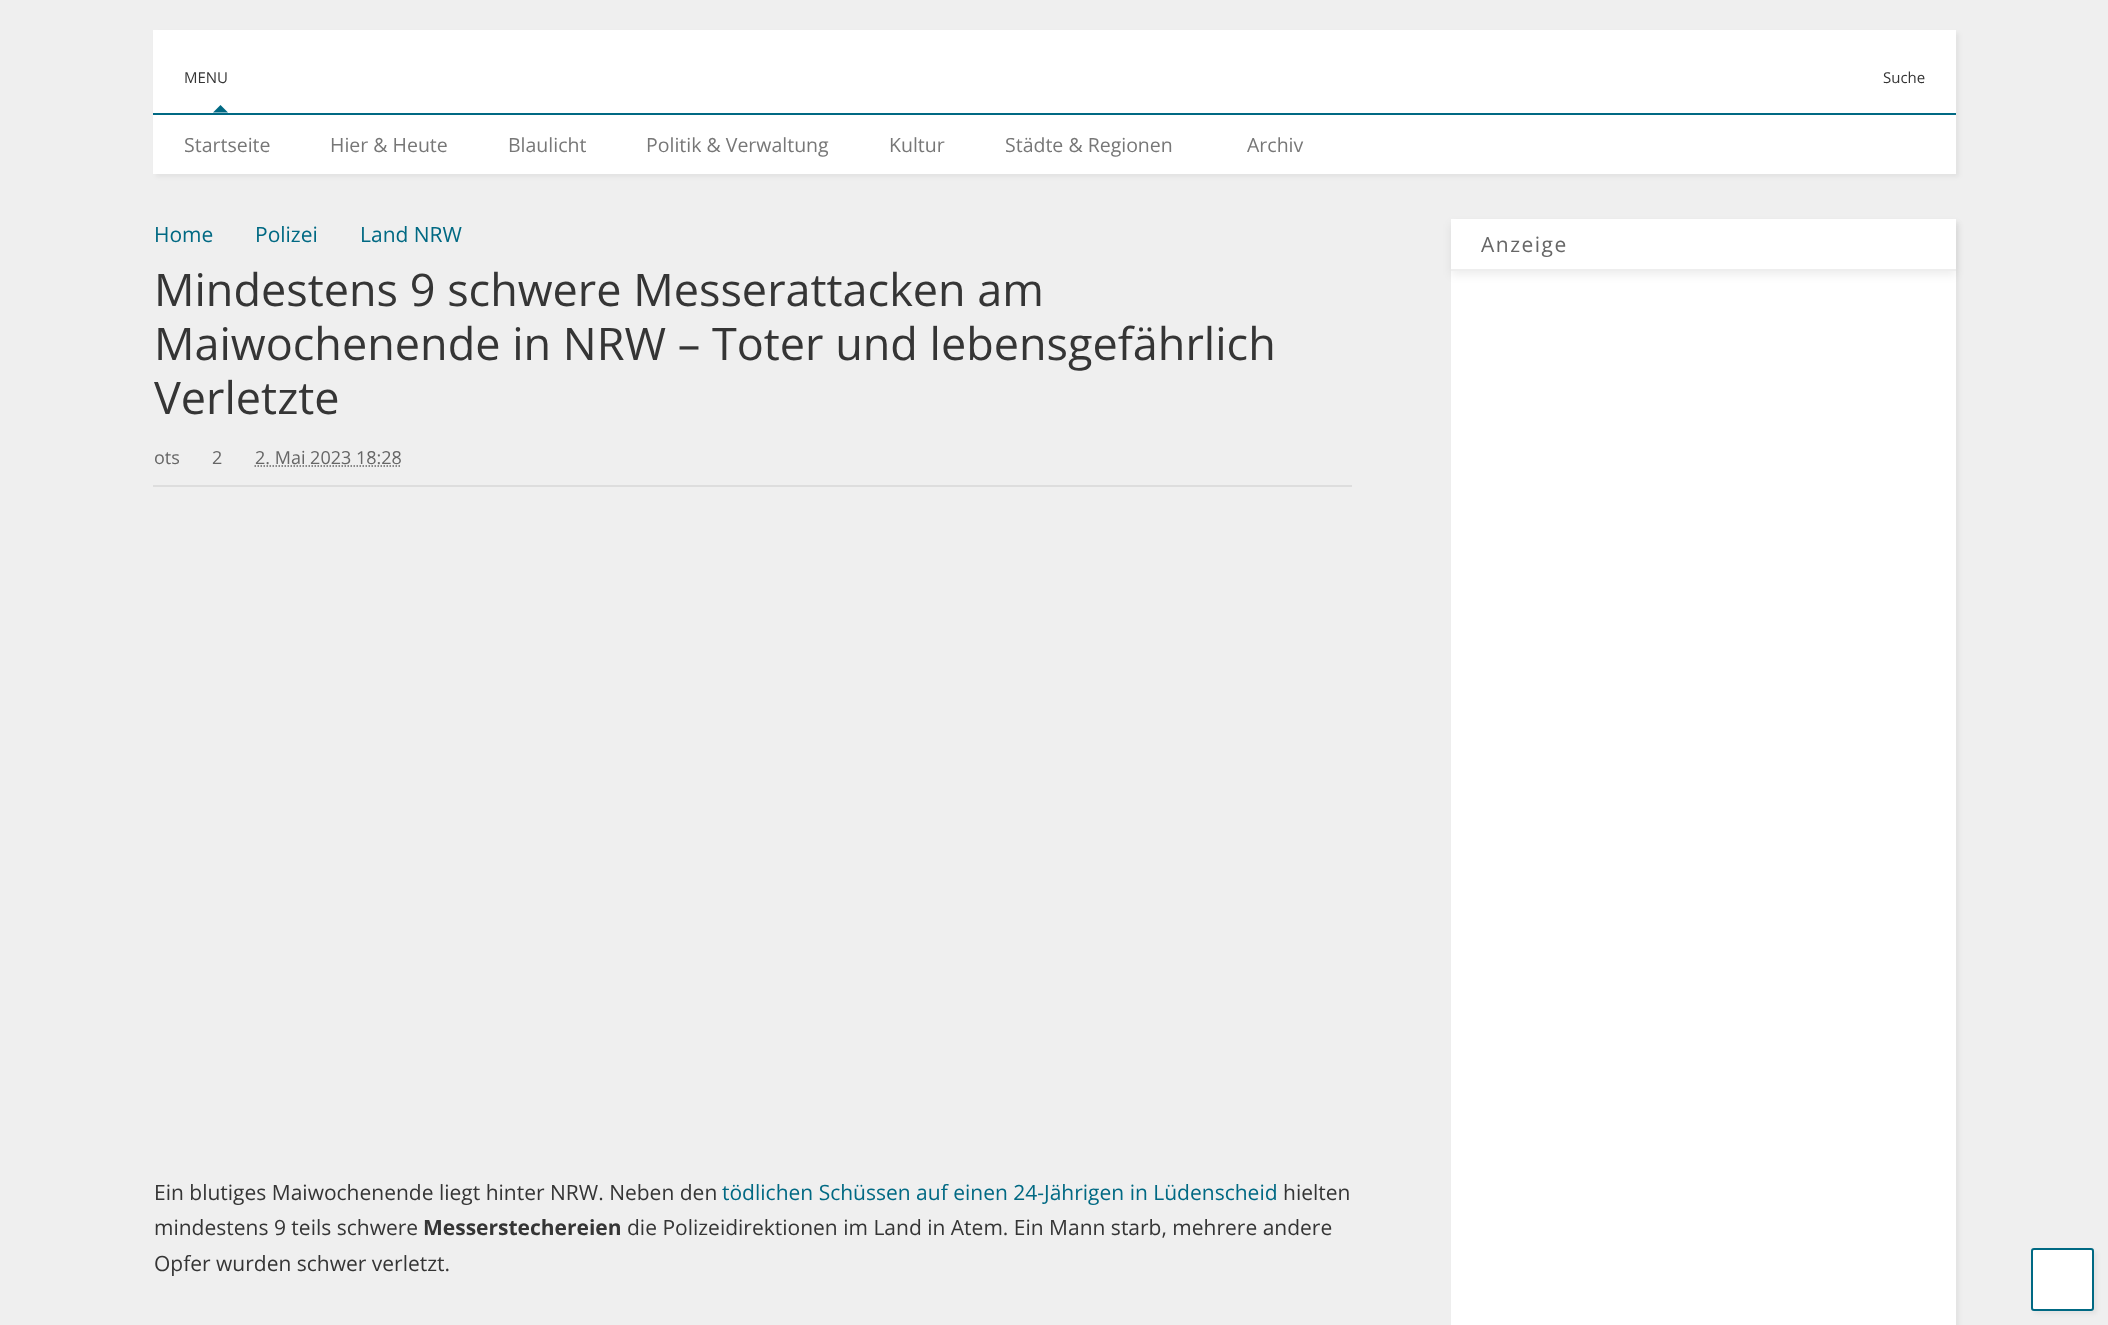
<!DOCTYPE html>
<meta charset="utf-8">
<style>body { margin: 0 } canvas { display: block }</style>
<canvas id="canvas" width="2108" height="1325"></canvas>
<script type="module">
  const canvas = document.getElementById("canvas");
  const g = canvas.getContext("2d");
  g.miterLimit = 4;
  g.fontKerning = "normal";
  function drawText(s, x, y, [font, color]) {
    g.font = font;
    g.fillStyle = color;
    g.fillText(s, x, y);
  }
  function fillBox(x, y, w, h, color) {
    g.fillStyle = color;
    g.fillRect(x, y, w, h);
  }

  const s1 = ["15px Open Sans", "#353535"];
  const s2 = ["19.5px Open Sans", "#777777"];
  const s3 = ["21px Open Sans", "#006983"];
  const s4 = ["45px Open Sans", "#353535"];
  const s5 = ["18px Open Sans", "#666666"];
  const s6 = ["21px Open Sans", "#353535"];
  const s7 = ["bold 21px Open Sans", "#353535"];
  const s8 = ["21px Open Sans", "#666666"];

  fillBox(0, 0, 2108, 1325, "#EFEFEF");
  g.fillStyle = "rgba(0, 0, 0, 0.05)";
  g.filter = "blur(2px)";
  g.beginPath();
  g.rect(156, 33, 1803, 144);
  g.fill();
  g.filter = "none";
  fillBox(153, 30, 1803, 144, "#FFFFFF");
  drawText("MENU", 184, 83, s1);
  g.fillStyle = "#006983";
  g.beginPath();
  g.moveTo(228, 112.5);
  g.lineTo(213, 112.5);
  g.lineTo(220.5, 105);
  g.closePath();
  g.fill();
  drawText("Suche", 1883, 83, s1);
  fillBox(153, 113, 1803, 2, "#006983");
  drawText("Startseite", 184, 152, s2);
  drawText("Hier & Heute", 330, 152, s2);
  drawText("Blaulicht", 508, 152, s2);
  drawText("Politik & Verwaltung", 646, 152, s2);
  drawText("Kultur", 889, 152, s2);
  drawText("Städte & Regionen", 1005, 152, s2);
  drawText("Archiv", 1247, 152, s2);
  drawText("Home", 154, 242, s3);
  drawText("Polizei", 255, 242, s3);
  drawText("Land NRW", 360, 242, s3);
  drawText("Mindestens 9 schwere Messerattacken am", 154, 306, s4);
  drawText("Maiwochenende in NRW – Toter und lebensgefährlich", 154, 360, s4);
  drawText("Verletzte", 154, 414, s4);
  fillBox(153, 485, 1199, 2, "#DDDDDD");
  drawText("ots", 154, 464, s5);
  drawText("2", 212, 464, s5);
  drawText("2. Mai 2023 18:28", 255, 464, s5);
  g.beginPath();
  g.moveTo(254.5, 466);
  g.lineTo(401.5, 466);
  g.strokeStyle = "#666666";
  g.lineWidth = 1.5;
  g.setLineDash([1.5, 1.5]);
  g.stroke();
  drawText("Ein blutiges Maiwochenende liegt hinter NRW. Neben den", 154, 1200, s6);
  drawText("tödlichen Schüssen auf einen 24-Jährigen in Lüdenscheid", 722, 1200, s3);
  drawText("hielten", 1283, 1200, s6);
  drawText("mindestens 9 teils schwere", 154, 1235, s6);
  drawText("Messerstechereien", 423, 1235, s7);
  drawText("die Polizeidirektionen im Land in Atem. Ein Mann starb, mehrere andere", 627, 1235, s6);
  drawText("Opfer wurden schwer verletzt.", 154, 1271, s6);
  g.fillStyle = "rgba(0, 0, 0, 0.05)";
  g.filter = "blur(2px)";
  g.beginPath();
  g.rect(1454, 222, 505, 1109);
  g.fill();
  g.filter = "none";
  fillBox(1451, 219, 505, 1106, "#FFFFFF");
  g.save();
  g.beginPath();
  g.moveTo(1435, 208);
  g.lineTo(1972, 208);
  g.lineTo(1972, 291);
  g.lineTo(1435, 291);
  g.closePath();
  g.moveTo(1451, 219);
  g.lineTo(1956, 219);
  g.lineTo(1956, 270);
  g.lineTo(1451, 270);
  g.closePath();
  g.clip("evenodd");
  g.fillStyle = "rgba(0, 0, 0, 0.07)";
  g.filter = "blur(5px)";
  g.beginPath();
  g.rect(1451, 224, 505, 51);
  g.fill();
  g.filter = "none";
  g.restore();
  fillBox(1451, 269, 505, 2, "#EEEEEE");
  g.letterSpacing = "1.5px";
  drawText("Anzeige", 1481, 252, s8);
  g.fillStyle = "rgba(0, 0, 0, 0.05)";
  g.filter = "blur(2px)";
  g.beginPath();
  g.roundRect(2034, 1251, 63, 63, 3);
  g.fill();
  g.filter = "none";
  g.fillStyle = "#FFFFFF";
  g.beginPath();
  g.roundRect(2032, 1249, 61, 61, 2);
  g.fill();
  g.strokeStyle = "#006983";
  g.lineWidth = 2;
  g.setLineDash([]);
  g.stroke();
</script>
